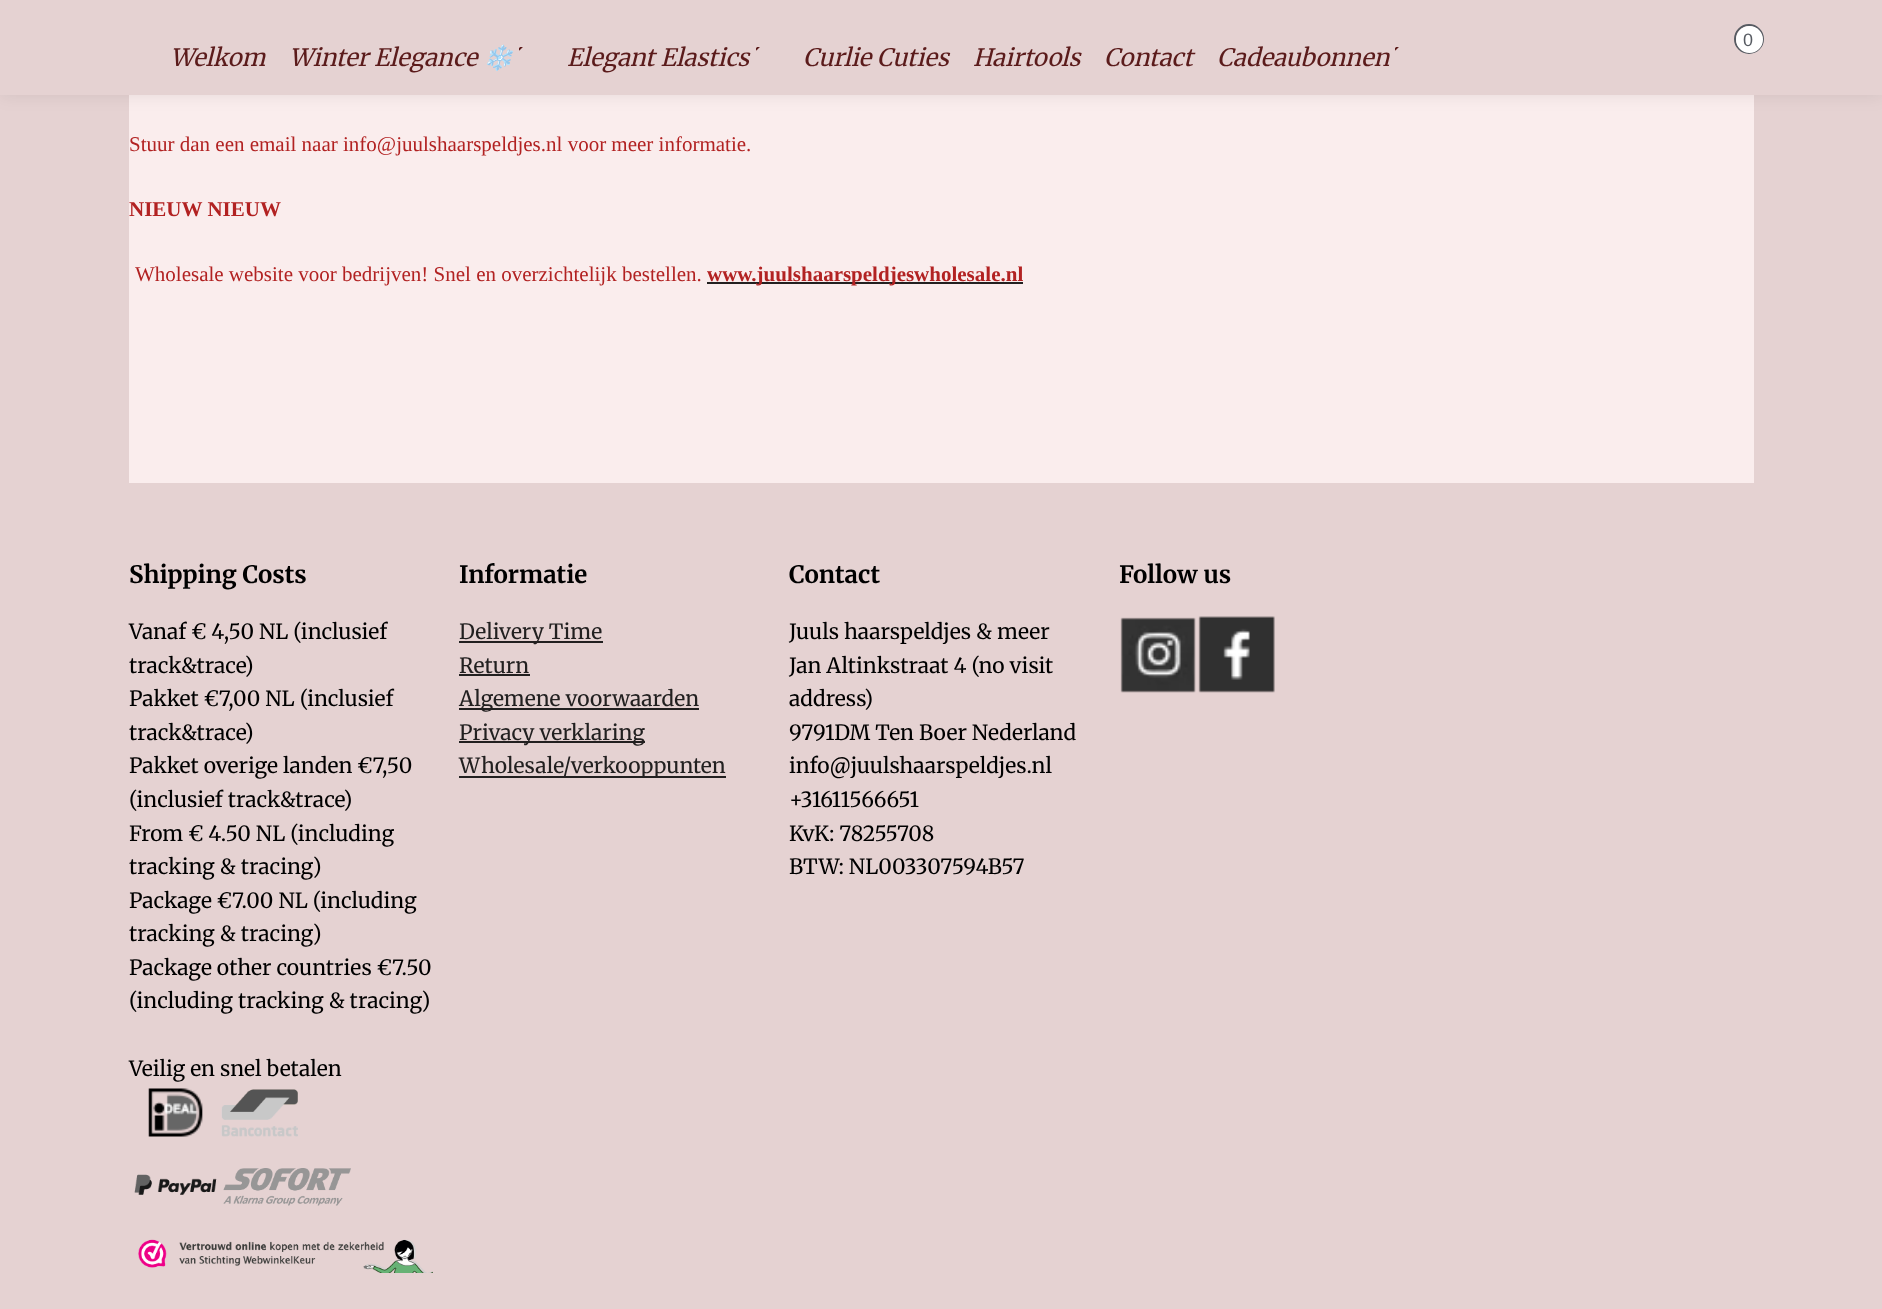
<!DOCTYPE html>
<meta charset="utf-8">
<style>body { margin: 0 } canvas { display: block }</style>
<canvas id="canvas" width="1882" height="1309"></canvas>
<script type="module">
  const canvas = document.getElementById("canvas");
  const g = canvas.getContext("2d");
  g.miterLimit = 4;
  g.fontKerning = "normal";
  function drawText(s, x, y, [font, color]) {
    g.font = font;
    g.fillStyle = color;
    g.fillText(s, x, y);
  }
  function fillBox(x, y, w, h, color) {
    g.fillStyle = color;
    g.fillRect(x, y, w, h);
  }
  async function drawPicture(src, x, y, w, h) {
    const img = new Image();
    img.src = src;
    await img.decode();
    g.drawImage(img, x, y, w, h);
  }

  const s1 = ["18px Liberation Sans", "#575B62"];
  const s2 = ["italic 24px Merriweather", "#5B1B1B"];
  const s3 = ["italic 24px Noto Color Emoji", "#5B1B1B"];
  const s4 = ["21px Liberation Serif", "#B22222"];
  const s5 = ["bold 21px Liberation Serif", "#B22222"];
  const s6 = ["bold 24px Merriweather", "#000000"];
  const s7 = ["21px Merriweather", "#000000"];
  const s8 = ["21px Merriweather", "#222020"];

  fillBox(0, 0, 1882, 1309, "#E5D2D2");
  fillBox(129, 95, 1625, 388, "#FAEDED");
  g.fillStyle = "rgba(0, 0, 0, 0.08)";
  g.filter = "blur(9px)";
  g.beginPath();
  g.rect(0, 0, 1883, 95);
  g.fill();
  g.filter = "none";
  fillBox(0, 0, 1882, 95, "#E5D2D2");
  g.beginPath();
  g.arc(1749, 39, 14, 0, Math.PI * 2);
  g.strokeStyle = "#575B62";
  g.lineWidth = 2;
  g.stroke();
  g.fillStyle = "#FFFFFF";
  g.beginPath();
  g.arc(1749.5, 39.5, 13.5, 0, Math.PI * 2);
  g.fill();
  drawText("0", 1743, 46, s1);
  drawText("Welkom", 170, 66, s2);
  drawText("Winter Elegance", 289, 66, s2);
  drawText("❄️", 483, 66, s3);
  await drawPicture("pic1.png", 519, 47, 4, 4);
  drawText("Elegant Elastics", 567, 66, s2);
  await drawPicture("pic1.png", 756, 47, 4, 4);
  drawText("Curlie Cuties", 803, 66, s2);
  drawText("Hairtools", 973, 66, s2);
  drawText("Contact", 1104, 66, s2);
  drawText("Cadeaubonnen", 1217, 66, s2);
  await drawPicture("pic1.png", 1395, 47, 4, 4);
  drawText("Stuur dan een email naar info@juulshaarspeldjes.nl voor meer informatie.", 129, 151, s4);
  drawText("NIEUW NIEUW", 129, 216, s5);
  drawText("Wholesale website voor bedrijven! Snel en overzichtelijk bestellen.", 135, 281, s4);
  fillBox(707, 282, 316, 2, "#222020");
  drawText("www.juulshaarspeldjeswholesale.nl", 707, 281, s5);
  drawText("Shipping Costs", 129, 583, s6);
  drawText("Vanaf € 4,50 NL (inclusief", 129, 639, s7);
  drawText("track&trace)", 129, 673, s7);
  drawText("Pakket €7,00 NL (inclusief", 129, 706, s7);
  drawText("track&trace)", 129, 740, s7);
  drawText("Pakket overige landen €7,50", 129, 773, s7);
  drawText("(inclusief track&trace)", 129, 807, s7);
  drawText("From € 4.50 NL (including", 129, 841, s7);
  drawText("tracking & tracing)", 129, 874, s7);
  drawText("Package €7.00 NL (including", 129, 908, s7);
  drawText("tracking & tracing)", 129, 941, s7);
  drawText("Package other countries €7.50", 129, 975, s7);
  drawText("(including tracking & tracing)", 129, 1008, s7);
  drawText("Veilig en snel betalen", 129, 1076, s7);
  await drawPicture("pic2.png", 148, 1088, 55, 49);
  await drawPicture("pic3.png", 221, 1089, 77, 48);
  await drawPicture("pic4.png", 134, 1174, 83, 21);
  await drawPicture("pic5.png", 223, 1168, 128, 38);
  await drawPicture("pic6.png", 138, 1239, 295, 34);
  drawText("Informatie", 459, 583, s6);
  fillBox(459, 641, 144, 2, "#222020");
  drawText("Delivery Time", 459, 639, s8);
  drawText("Return", 459, 673, s8);
  fillBox(459, 674, 71, 2, "#222020");
  fillBox(459, 708, 240, 2, "#222020");
  drawText("Algemene voorwaarden", 459, 706, s8);
  fillBox(459, 741, 186, 2, "#222020");
  drawText("Privacy verklaring", 459, 740, s8);
  drawText("W", 459, 773, s8);
  drawText("holesale", 481, 773, s8);
  fillBox(459, 776, 267, 2, "#222020");
  drawText("/verkooppunten", 563, 773, s8);
  drawText("Contact", 789, 583, s6);
  drawText("Juuls haarspeldjes & meer", 789, 639, s7);
  drawText("Jan Altinkstraat 4 (no visit", 789, 673, s7);
  drawText("address)", 789, 706, s7);
  drawText("9791DM Ten Boer Nederland", 789, 740, s7);
  drawText("info@juulshaarspeldjes.nl", 789, 773, s7);
  drawText("+31611566651", 789, 807, s7);
  drawText("KvK: 78255708", 789, 841, s7);
  drawText("BTW: NL003307594B57", 789, 874, s7);
  drawText("Follow us", 1119, 583, s6);
  await drawPicture("pic7.png", 1120, 617, 76, 76);
  await drawPicture("pic8.png", 1198, 616, 77, 77);
</script>
